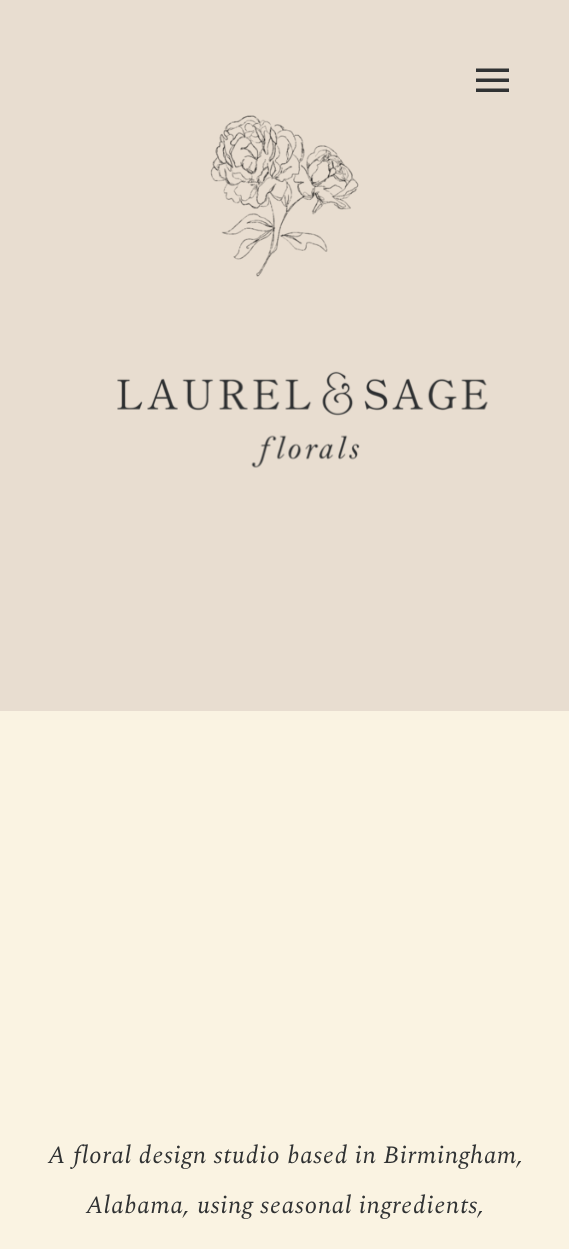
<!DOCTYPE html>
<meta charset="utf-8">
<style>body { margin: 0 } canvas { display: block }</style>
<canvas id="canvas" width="569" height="1249"></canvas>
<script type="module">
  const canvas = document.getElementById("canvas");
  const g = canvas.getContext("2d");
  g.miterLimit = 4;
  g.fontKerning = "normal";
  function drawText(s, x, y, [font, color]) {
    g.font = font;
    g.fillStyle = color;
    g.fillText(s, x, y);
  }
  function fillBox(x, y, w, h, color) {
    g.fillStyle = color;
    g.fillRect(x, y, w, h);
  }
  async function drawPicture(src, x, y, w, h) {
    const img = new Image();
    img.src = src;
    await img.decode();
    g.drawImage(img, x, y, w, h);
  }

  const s1 = ["italic 24.9px Spectral", "#303233"];

  fillBox(0, 0, 569, 1249, "#E8DDD0");
  g.fillStyle = "#303233";
  g.beginPath();
  g.moveTo(476, 78.5);
  g.lineTo(509, 78.5);
  g.lineTo(509, 82);
  g.lineTo(476, 82);
  g.closePath();
  g.moveTo(476, 68.5);
  g.lineTo(509, 68.5);
  g.lineTo(509, 72);
  g.lineTo(476, 72);
  g.closePath();
  g.moveTo(476, 88.5);
  g.lineTo(509, 88.5);
  g.lineTo(509, 92);
  g.lineTo(476, 92);
  g.closePath();
  g.fill();
  await drawPicture("pic1.png", 210, 115, 149, 162);
  await drawPicture("pic2.png", 117, 371, 371, 97);
  fillBox(0, 711, 569, 538, "#FAF3E2");
  g.letterSpacing = "0.75px";
  drawText("A floral design studio based in Birmingham,", 48, 1163, s1);
  drawText("Alabama, using seasonal ingredients,", 86, 1213, s1);
</script>
